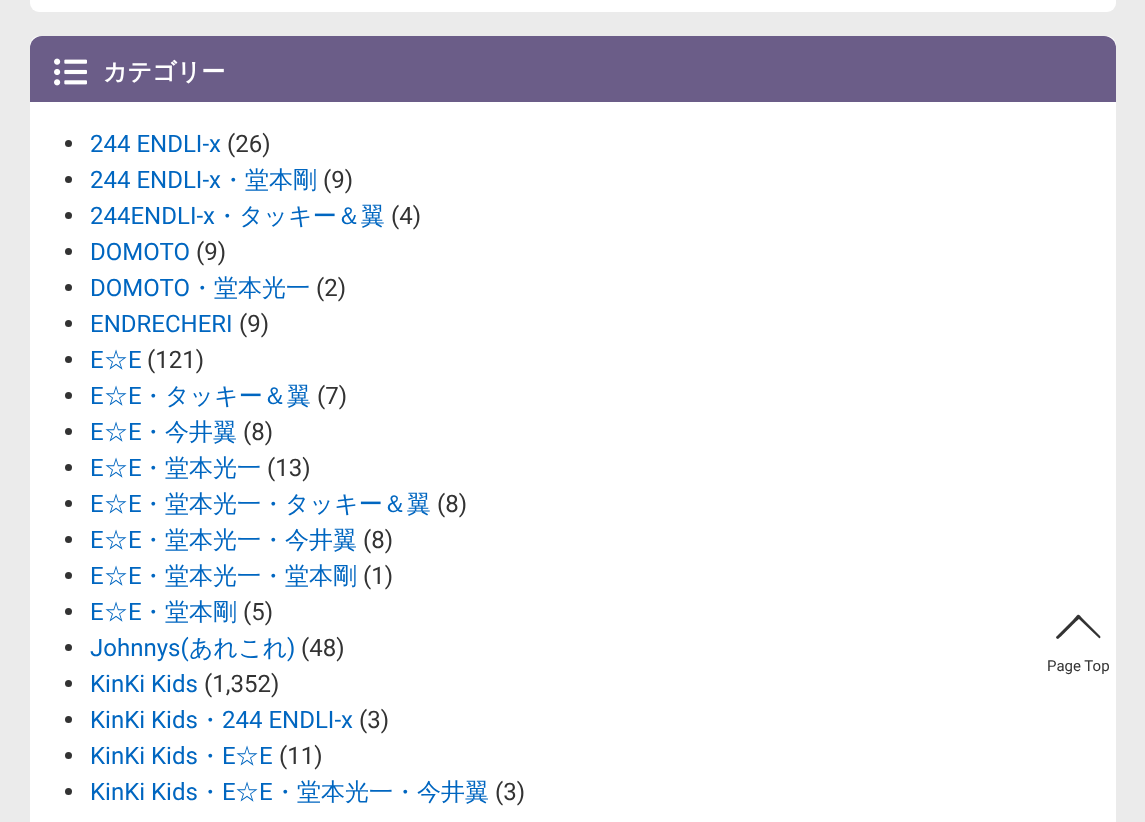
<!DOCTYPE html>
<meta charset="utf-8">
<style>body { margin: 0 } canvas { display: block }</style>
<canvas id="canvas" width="1145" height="822"></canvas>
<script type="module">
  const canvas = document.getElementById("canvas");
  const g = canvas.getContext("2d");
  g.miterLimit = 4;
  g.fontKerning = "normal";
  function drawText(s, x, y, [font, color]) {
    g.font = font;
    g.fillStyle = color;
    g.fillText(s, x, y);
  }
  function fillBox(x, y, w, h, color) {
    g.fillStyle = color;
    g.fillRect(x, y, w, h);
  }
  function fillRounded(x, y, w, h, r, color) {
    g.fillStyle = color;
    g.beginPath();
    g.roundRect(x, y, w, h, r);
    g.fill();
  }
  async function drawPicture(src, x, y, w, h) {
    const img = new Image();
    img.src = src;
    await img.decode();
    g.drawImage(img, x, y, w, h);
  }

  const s1 = ["bold 24px WenQuanYi Zen Hei", "#FFFFFF"];
  const s2 = ["24px Roboto", "#0066C0"];
  const s3 = ["24px Roboto", "#333333"];
  const s4 = ["500 24px WenQuanYi Zen Hei", "#0066C0"];
  const s5 = ["15px Roboto", "#333333"];

  fillBox(0, 0, 1145, 822, "#EBEBEB");
  fillRounded(30, -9, 1086, 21, 9, "#FFFFFF");
  fillRounded(30, 36, 1086, 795, 9, "#FFFFFF");
  g.fillStyle = "#6B5D88";
  g.beginPath();
  g.roundRect(30, 36, 1086, 66, [12, 12, 0, 0]);
  g.fill();
  await drawPicture("pic1.png", 54, 58, 33, 28);
  drawText("カテゴリー", 103, 80, s1);
  g.fillStyle = "#333333";
  g.beginPath();
  g.arc(68.5, 143.5, 3.5, 0, Math.PI * 2);
  g.fill();
  drawText("244 ENDLI-x", 90, 152, s2);
  drawText("(26)", 227, 152, s3);
  g.beginPath();
  g.arc(68.5, 179.5, 3.5, 0, Math.PI * 2);
  g.fill();
  drawText("244 ENDLI-x", 90, 188, s2);
  drawText("・堂本剛", 221, 188, s4);
  drawText("(9)", 323, 188, s3);
  g.beginPath();
  g.arc(68.5, 215.5, 3.5, 0, Math.PI * 2);
  g.fill();
  drawText("244ENDLI-x", 90, 224, s2);
  drawText("・タッキー＆翼", 215, 224, s4);
  drawText("(4)", 391, 224, s3);
  g.beginPath();
  g.arc(68.5, 251.5, 3.5, 0, Math.PI * 2);
  g.fill();
  drawText("DOMOTO", 90, 260, s2);
  drawText("(9)", 196, 260, s3);
  g.beginPath();
  g.arc(68.5, 287.5, 3.5, 0, Math.PI * 2);
  g.fill();
  drawText("DOMOTO", 90, 296, s2);
  drawText("・堂本光一", 190, 296, s4);
  drawText("(2)", 316, 296, s3);
  g.beginPath();
  g.arc(68.5, 323.5, 3.5, 0, Math.PI * 2);
  g.fill();
  drawText("ENDRECHERI", 90, 332, s2);
  drawText("(9)", 239, 332, s3);
  g.beginPath();
  g.arc(68.5, 359.5, 3.5, 0, Math.PI * 2);
  g.fill();
  drawText("E", 90, 368, s2);
  drawText("☆", 104, 368, s4);
  drawText("E", 128, 368, s2);
  drawText("(121)", 147, 368, s3);
  g.beginPath();
  g.arc(68.5, 395.5, 3.5, 0, Math.PI * 2);
  g.fill();
  drawText("E", 90, 404, s2);
  drawText("☆", 104, 404, s4);
  drawText("E", 128, 404, s2);
  drawText("・タッキー＆翼", 141, 404, s4);
  drawText("(7)", 317, 404, s3);
  g.beginPath();
  g.arc(68.5, 431.5, 3.5, 0, Math.PI * 2);
  g.fill();
  drawText("E", 90, 440, s2);
  drawText("☆", 104, 440, s4);
  drawText("E", 128, 440, s2);
  drawText("・今井翼", 141, 440, s4);
  drawText("(8)", 243, 440, s3);
  g.beginPath();
  g.arc(68.5, 467.5, 3.5, 0, Math.PI * 2);
  g.fill();
  drawText("E", 90, 476, s2);
  drawText("☆", 104, 476, s4);
  drawText("E", 128, 476, s2);
  drawText("・堂本光一", 141, 476, s4);
  drawText("(13)", 267, 476, s3);
  g.beginPath();
  g.arc(68.5, 503.5, 3.5, 0, Math.PI * 2);
  g.fill();
  drawText("E", 90, 512, s2);
  drawText("☆", 104, 512, s4);
  drawText("E", 128, 512, s2);
  drawText("・堂本光一・タッキー＆翼", 141, 512, s4);
  drawText("(8)", 437, 512, s3);
  g.beginPath();
  g.arc(68.5, 539.5, 3.5, 0, Math.PI * 2);
  g.fill();
  drawText("E", 90, 548, s2);
  drawText("☆", 104, 548, s4);
  drawText("E", 128, 548, s2);
  drawText("・堂本光一・今井翼", 141, 548, s4);
  drawText("(8)", 363, 548, s3);
  g.beginPath();
  g.arc(68.5, 575.5, 3.5, 0, Math.PI * 2);
  g.fill();
  drawText("E", 90, 584, s2);
  drawText("☆", 104, 584, s4);
  drawText("E", 128, 584, s2);
  drawText("・堂本光一・堂本剛", 141, 584, s4);
  drawText("(1)", 363, 584, s3);
  g.beginPath();
  g.arc(68.5, 611.5, 3.5, 0, Math.PI * 2);
  g.fill();
  drawText("E", 90, 620, s2);
  drawText("☆", 104, 620, s4);
  drawText("E", 128, 620, s2);
  drawText("・堂本剛", 141, 620, s4);
  drawText("(5)", 243, 620, s3);
  g.beginPath();
  g.arc(68.5, 647.5, 3.5, 0, Math.PI * 2);
  g.fill();
  drawText("Johnnys(", 90, 656, s2);
  drawText("あれこれ", 189, 656, s4);
  drawText(")", 287, 656, s2);
  drawText("(48)", 301, 656, s3);
  g.beginPath();
  g.arc(68.5, 683.5, 3.5, 0, Math.PI * 2);
  g.fill();
  drawText("KinKi Kids", 90, 692, s2);
  drawText("(1,352)", 204, 692, s3);
  g.beginPath();
  g.arc(68.5, 719.5, 3.5, 0, Math.PI * 2);
  g.fill();
  drawText("KinKi Kids", 90, 728, s2);
  drawText("・", 198, 728, s4);
  drawText("244 ENDLI-x", 222, 728, s2);
  drawText("(3)", 359, 728, s3);
  g.beginPath();
  g.arc(68.5, 755.5, 3.5, 0, Math.PI * 2);
  g.fill();
  drawText("KinKi Kids", 90, 764, s2);
  drawText("・", 198, 764, s4);
  drawText("E", 222, 764, s2);
  drawText("☆", 235, 764, s4);
  drawText("E", 259, 764, s2);
  drawText("(11)", 279, 764, s3);
  g.beginPath();
  g.arc(68.5, 791.5, 3.5, 0, Math.PI * 2);
  g.fill();
  drawText("KinKi Kids", 90, 800, s2);
  drawText("・", 198, 800, s4);
  drawText("E", 222, 800, s2);
  drawText("☆", 235, 800, s4);
  drawText("E", 259, 800, s2);
  drawText("・堂本光一・今井翼", 273, 800, s4);
  drawText("(3)", 495, 800, s3);
  g.beginPath();
  g.moveTo(1056, 637);
  g.bezierCurveTo(1056, 638, 1057, 639, 1058, 639);
  g.bezierCurveTo(1059, 639, 1076, 621, 1079, 619);
  g.lineTo(1099, 638);
  g.bezierCurveTo(1100, 639, 1101, 637, 1100, 636);
  g.lineTo(1083, 619);
  g.bezierCurveTo(1077, 612, 1079, 614, 1071, 622);
  g.closePath();
  g.fill();
  drawText("Page Top", 1047, 671, s5);
</script>
